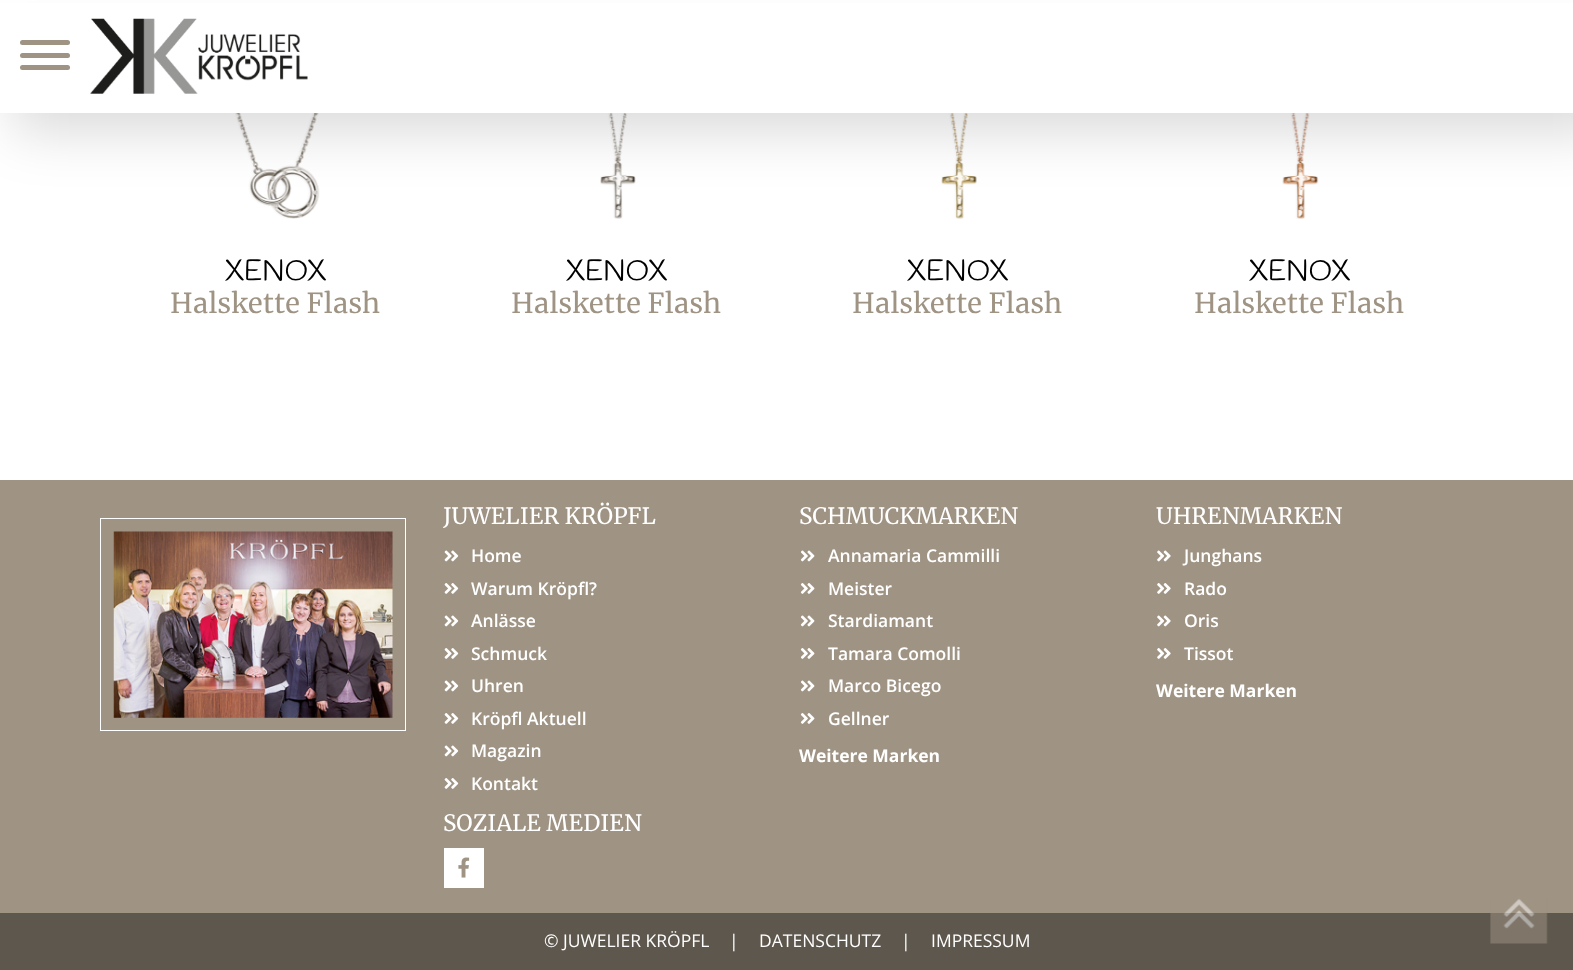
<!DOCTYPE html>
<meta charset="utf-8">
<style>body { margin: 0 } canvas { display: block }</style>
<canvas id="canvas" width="1573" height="970"></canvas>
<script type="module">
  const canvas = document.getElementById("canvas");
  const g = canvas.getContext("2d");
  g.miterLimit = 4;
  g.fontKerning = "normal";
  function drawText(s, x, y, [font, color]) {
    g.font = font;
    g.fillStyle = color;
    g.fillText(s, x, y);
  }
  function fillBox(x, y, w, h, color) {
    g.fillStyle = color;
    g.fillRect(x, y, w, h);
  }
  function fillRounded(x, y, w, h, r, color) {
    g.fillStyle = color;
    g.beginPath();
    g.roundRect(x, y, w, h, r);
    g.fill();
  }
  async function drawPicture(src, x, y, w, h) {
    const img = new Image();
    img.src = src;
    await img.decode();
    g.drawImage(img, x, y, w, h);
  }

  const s1 = ["29px Handlee", "#000000"];
  const s2 = ["27.5px Merriweather", "#9F9383"];
  const s3 = ["22.5px Merriweather", "#FFFFFF"];
  const s4 = ["600 17.5px Open Sans", "#FFFFFF"];
  const s5 = ["bold 17.5px Open Sans", "#FFFFFF"];
  const s6 = ["17.5px Open Sans", "#FFFFFF"];

  fillBox(0, 0, 1573, 970, "#FFFFFF");
  await drawPicture("pic2.png", 235, 113, 85, 106);
  await drawPicture("pic3.png", 600, 113, 36, 106);
  await drawPicture("pic4.png", 941, 113, 36, 106);
  await drawPicture("pic5.png", 1282, 113, 37, 106);
  g.fillStyle = "rgba(0, 0, 0, 0.15)";
  g.filter = "blur(27.5px)";
  g.beginPath();
  g.rect(13, 44, 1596, 87);
  g.fill();
  g.filter = "none";
  fillBox(0, 3, 1573, 110, "#FFFFFF");
  fillRounded(20, 40, 50, 5, 2.5, "#9F9383");
  fillRounded(20, 53, 50, 5, 2.5, "#9F9383");
  fillRounded(20, 65, 50, 5, 2.5, "#9F9383");
  await drawPicture("pic1.png", 90, 18, 218, 76);
  drawText("XENOX", 225, 280, s1);
  drawText("Halskette Flash", 170, 313, s2);
  drawText("XENOX", 566, 280, s1);
  drawText("Halskette Flash", 511, 313, s2);
  drawText("XENOX", 907, 280, s1);
  drawText("Halskette Flash", 852, 313, s2);
  drawText("XENOX", 1249, 280, s1);
  drawText("Halskette Flash", 1194, 313, s2);
  fillBox(0, 480, 1573, 433, "#9F9383");
  g.strokeStyle = "#FFFFFF";
  g.strokeRect(100.5, 518.5, 305, 212);
  await drawPicture("pic6.png", 113, 531, 280, 187);
  drawText("JUWELIER KRÖPFL", 443, 524, s3);
  await drawPicture("pic7.png", 444, 550, 15, 12);
  drawText("Home", 471, 562, s4);
  await drawPicture("pic8.png", 444, 583, 15, 11);
  drawText("Warum Kröpfl?", 471, 595, s4);
  await drawPicture("pic7.png", 444, 615, 15, 12);
  drawText("Anlässe", 471, 627, s4);
  await drawPicture("pic8.png", 444, 648, 15, 11);
  drawText("Schmuck", 471, 660, s4);
  await drawPicture("pic7.png", 444, 680, 15, 12);
  drawText("Uhren", 471, 692, s4);
  await drawPicture("pic8.png", 444, 713, 15, 11);
  drawText("Kröpfl Aktuell", 471, 725, s4);
  await drawPicture("pic7.png", 444, 745, 15, 12);
  drawText("Magazin", 471, 757, s4);
  await drawPicture("pic8.png", 444, 778, 15, 11);
  drawText("Kontakt", 471, 790, s4);
  drawText("SOZIALE MEDIEN", 443, 831, s3);
  fillBox(444, 848, 40, 40, "#FFFFFF");
  await drawPicture("pic9.png", 458, 857, 12, 21);
  drawText("SCHMUCKMARKEN", 799, 524, s3);
  await drawPicture("pic10.png", 800, 550, 15, 12);
  drawText("Annamaria Cammilli", 828, 562, s4);
  await drawPicture("pic11.png", 800, 583, 15, 11);
  drawText("Meister", 828, 595, s4);
  await drawPicture("pic10.png", 800, 615, 15, 12);
  drawText("Stardiamant", 828, 627, s4);
  await drawPicture("pic11.png", 800, 648, 15, 11);
  drawText("Tamara Comolli", 828, 660, s4);
  await drawPicture("pic10.png", 800, 680, 15, 12);
  drawText("Marco Bicego", 828, 692, s4);
  await drawPicture("pic11.png", 800, 713, 15, 11);
  drawText("Gellner", 828, 725, s4);
  drawText("Weitere Marken", 799, 762, s5);
  drawText("UHRENMARKEN", 1156, 524, s3);
  await drawPicture("pic12.png", 1157, 550, 14, 12);
  drawText("Junghans", 1184, 562, s4);
  await drawPicture("pic13.png", 1157, 583, 14, 11);
  drawText("Rado", 1184, 595, s4);
  await drawPicture("pic12.png", 1157, 615, 14, 12);
  drawText("Oris", 1184, 627, s4);
  await drawPicture("pic13.png", 1157, 648, 14, 11);
  drawText("Tissot", 1184, 660, s4);
  drawText("Weitere Marken", 1156, 697, s5);
  fillBox(0, 913, 1573, 57, "#5E574D");
  drawText("© JUWELIER KRÖPFL", 544, 947, s6);
  drawText("|", 729, 947, s6);
  drawText("DATENSCHUTZ", 759, 947, s6);
  drawText("|", 901, 947, s6);
  drawText("IMPRESSUM", 931, 947, s6);
  await drawPicture("pic14.png", 1490, 898, 58, 46);
</script>
